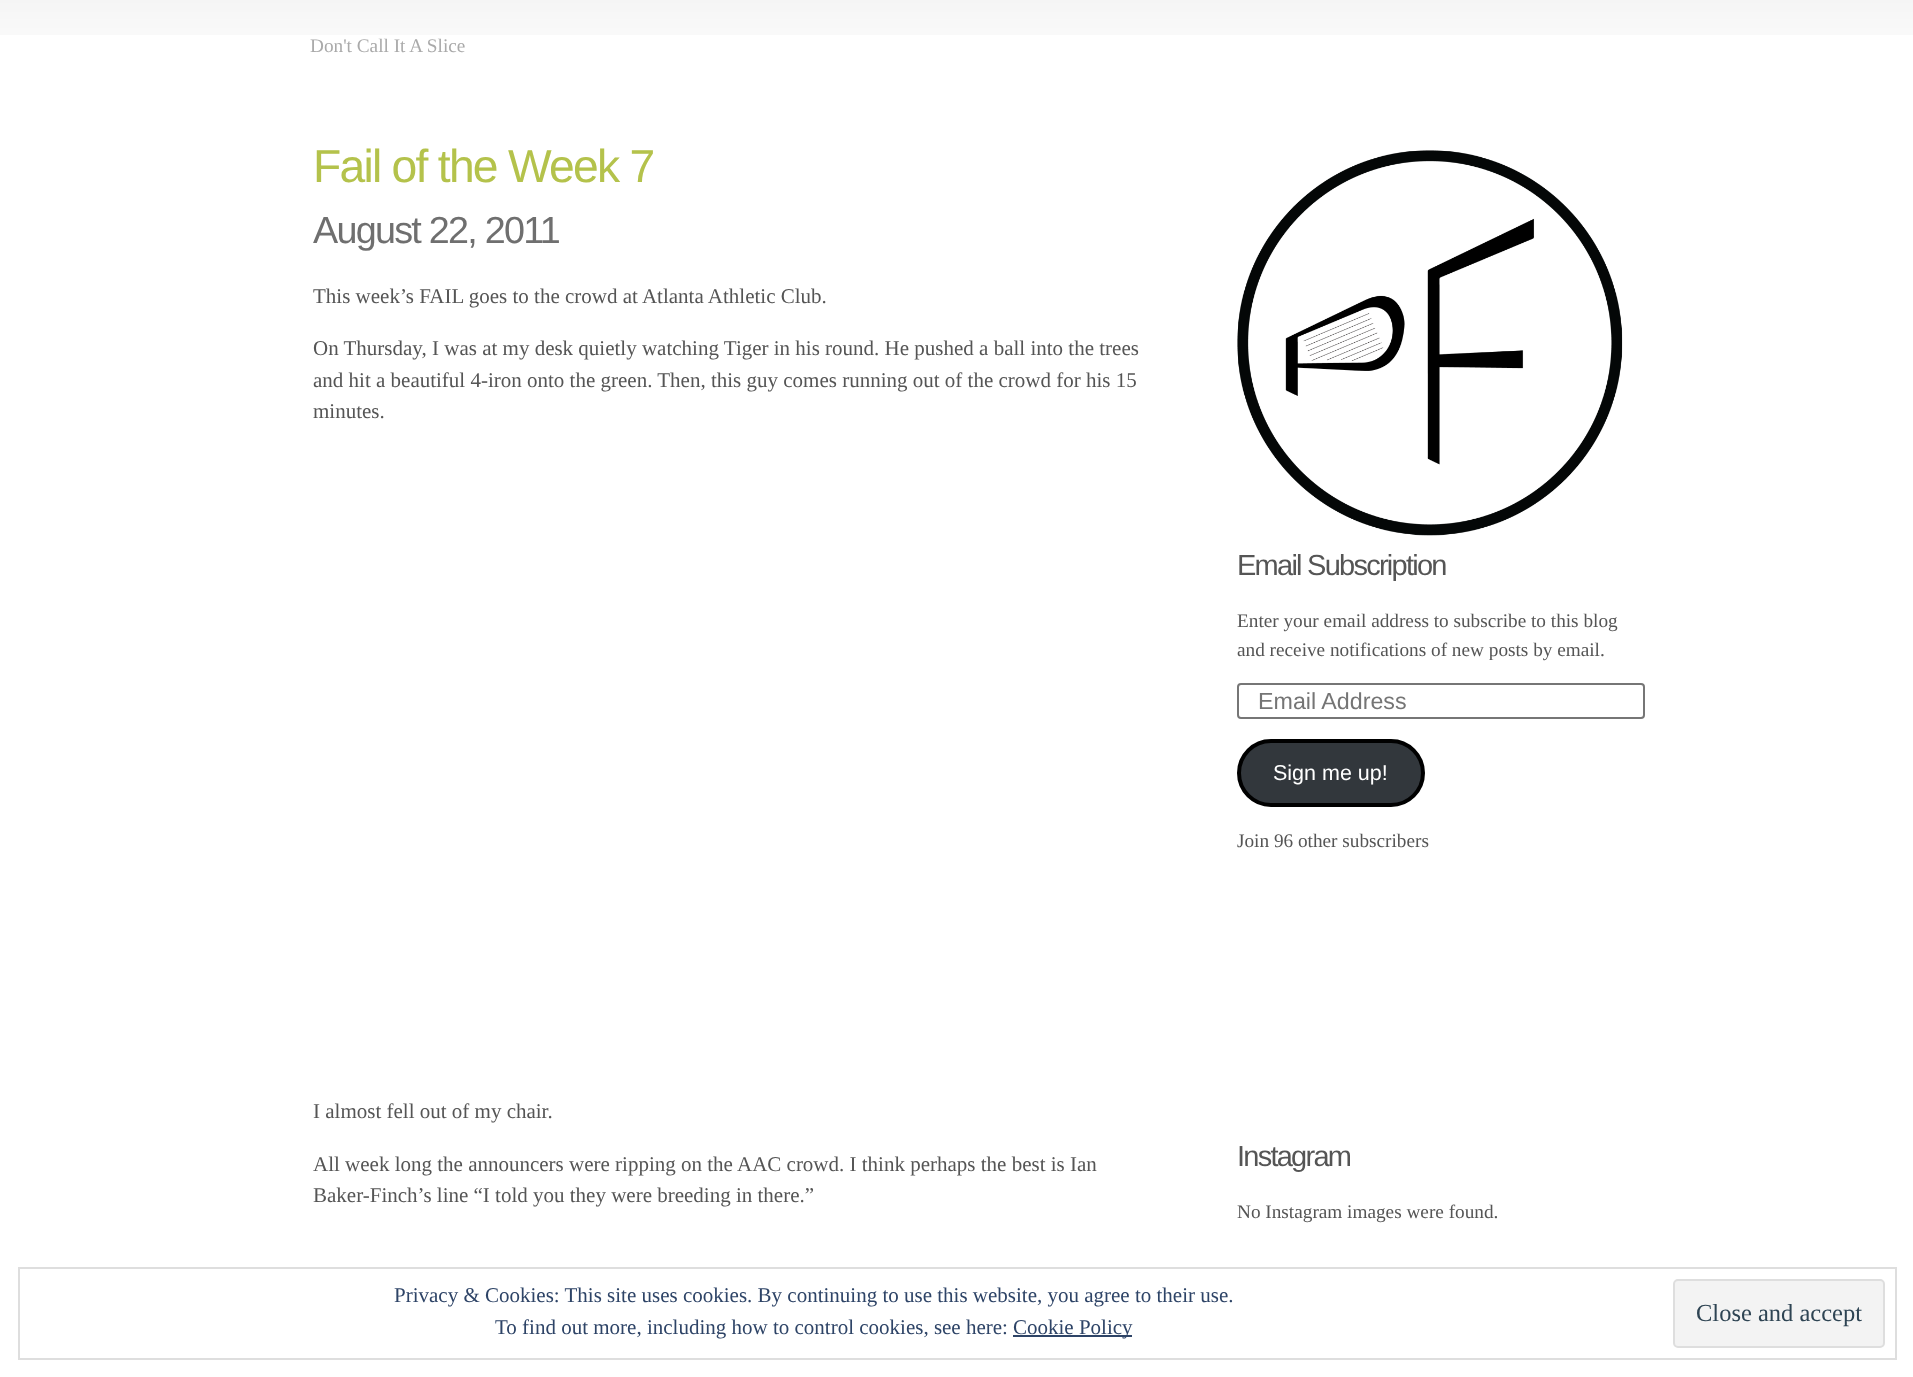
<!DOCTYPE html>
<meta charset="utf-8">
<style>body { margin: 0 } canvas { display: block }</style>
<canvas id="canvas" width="1913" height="1377"></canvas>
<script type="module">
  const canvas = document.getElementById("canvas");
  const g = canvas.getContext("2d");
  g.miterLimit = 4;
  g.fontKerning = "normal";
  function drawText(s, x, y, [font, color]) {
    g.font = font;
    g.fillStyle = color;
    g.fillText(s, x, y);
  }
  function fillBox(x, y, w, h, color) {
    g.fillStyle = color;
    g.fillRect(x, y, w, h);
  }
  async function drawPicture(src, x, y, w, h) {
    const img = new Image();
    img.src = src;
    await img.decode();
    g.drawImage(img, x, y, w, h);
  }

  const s1 = ["19.25px Liberation Serif", "#AAAAAA"];
  const s2 = ["46.25px Liberation Sans", "#B4C24B"];
  const s3 = ["37.75px Liberation Sans", "#6F6F6F"];
  const s4 = ["21px Liberation Serif", "#555555"];
  const s5 = ["29px Liberation Sans", "#555555"];
  const s6 = ["19.25px Liberation Serif", "#555555"];
  const s7 = ["23.25px Liberation Sans", "#757575"];
  const s8 = ["21.5px Liberation Sans", "#FFFFFF"];
  const s9 = ["21px Liberation Serif", "#2E4467"];
  const s10 = ["24.5px Liberation Serif", "#2E4453"];

  fillBox(0, 0, 1913, 1377, "#FFFFFF");
  await drawPicture("pic1.png", 0, 0, 1913, 35);
  drawText("Don't Call It A Slice", 310, 52, s1);
  g.letterSpacing = "-1.75px";
  drawText("Fail of the Week 7", 313, 182, s2);
  drawText("August 22, 2011", 313, 243, s3);
  g.letterSpacing = "0px";
  drawText("This week’s FAIL goes to the crowd at Atlanta Athletic Club.", 313, 303, s4);
  drawText("On Thursday, I was at my desk quietly watching Tiger in his round. He pushed a ball into the trees", 313, 355, s4);
  drawText("and hit a beautiful 4-iron onto the green. Then, this guy comes running out of the crowd for his 15", 313, 387, s4);
  drawText("minutes.", 313, 418, s4);
  drawText("I almost fell out of my chair.", 313, 1118, s4);
  drawText("All week long the announcers were ripping on the AAC crowd. I think perhaps the best is Ian", 313, 1171, s4);
  drawText("Baker-Finch’s line “I told you they were breeding in there.”", 313, 1202, s4);
  await drawPicture("pic2.png", 1237, 150, 386, 386);
  g.letterSpacing = "-1.75px";
  drawText("Email Subscription", 1237, 575, s5);
  g.letterSpacing = "0px";
  drawText("Enter your email address to subscribe to this blog", 1237, 627, s6);
  drawText("and receive notifications of new posts by email.", 1237, 656, s6);
  g.beginPath();
  g.roundRect(1238, 684, 406, 34, 3);
  g.strokeStyle = "#767676";
  g.lineWidth = 2;
  g.stroke();
  drawText("Email Address", 1258, 709, s7);
  g.fillStyle = "#32373C";
  g.beginPath();
  g.roundRect(1239, 741, 184, 64, 32);
  g.fill();
  g.strokeStyle = "#000000";
  g.lineWidth = 4;
  g.stroke();
  drawText("Sign me up!", 1273, 780, s8);
  drawText("Join 96 other subscribers", 1237, 847, s6);
  g.letterSpacing = "-1.75px";
  drawText("Instagram", 1237, 1166, s5);
  g.letterSpacing = "0px";
  drawText("No Instagram images were found.", 1237, 1218, s6);
  g.strokeStyle = "#DEDEDE";
  g.lineWidth = 2;
  g.strokeRect(19, 1268, 1877, 91);
  drawText("Privacy & Cookies: This site uses cookies. By continuing to use this website, you agree to their use.", 394, 1302, s9);
  g.fillStyle = "#F3F3F3";
  g.beginPath();
  g.roundRect(1674, 1280, 210, 67, 4);
  g.fill();
  g.stroke();
  drawText("Close and accept", 1696, 1321, s10);
  drawText("To find out more, including how to control cookies, see here:", 495, 1334, s9);
  fillBox(1013, 1335, 119, 2, "#2E4467");
  drawText("Cookie Policy", 1013, 1334, s9);
</script>
